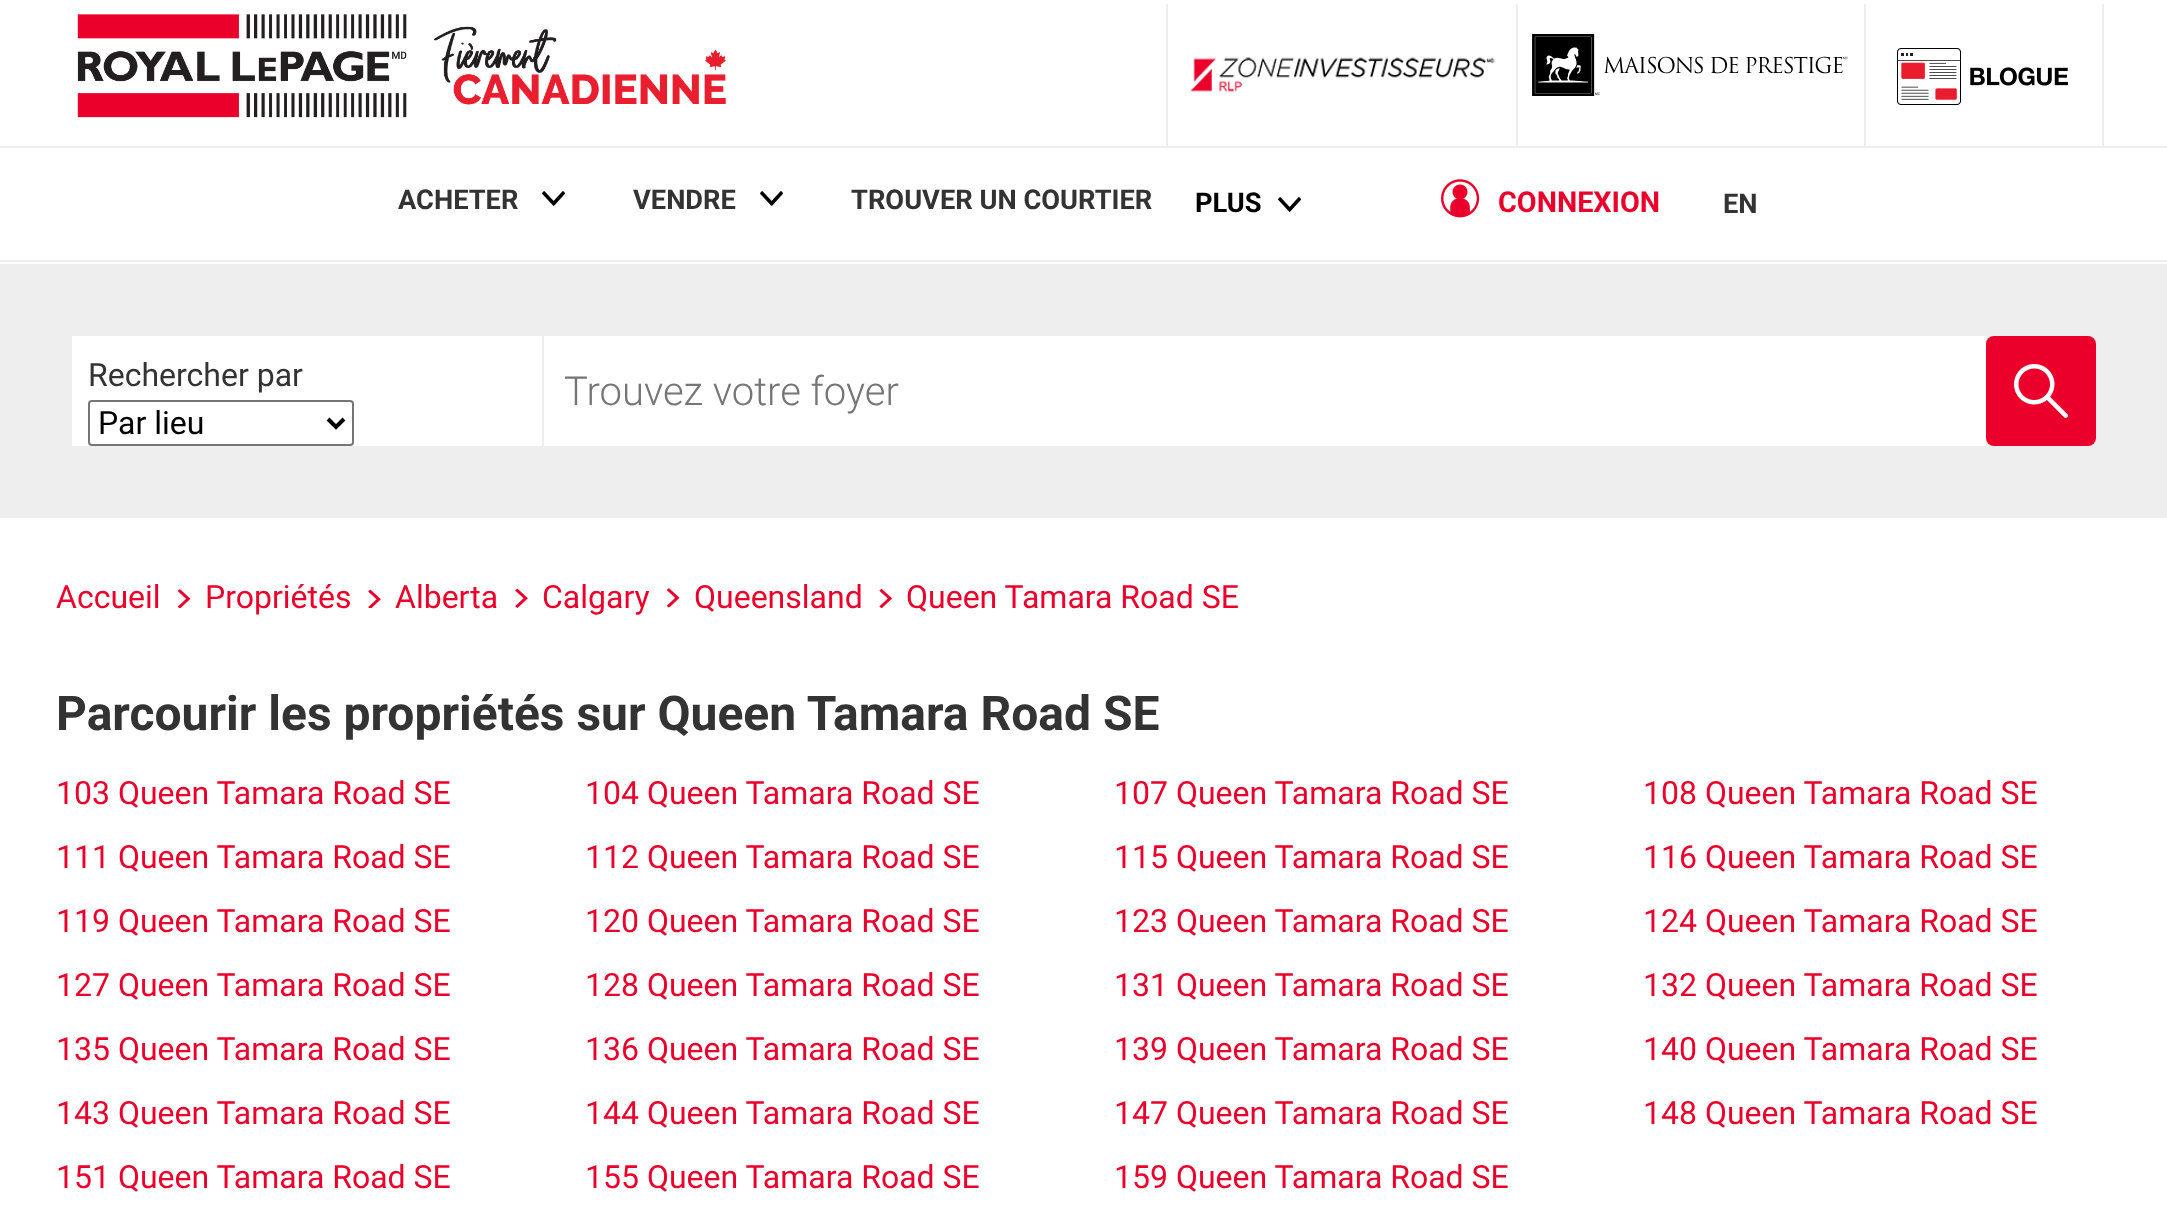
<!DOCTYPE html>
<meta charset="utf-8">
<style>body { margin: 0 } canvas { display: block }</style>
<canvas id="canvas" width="2167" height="1211"></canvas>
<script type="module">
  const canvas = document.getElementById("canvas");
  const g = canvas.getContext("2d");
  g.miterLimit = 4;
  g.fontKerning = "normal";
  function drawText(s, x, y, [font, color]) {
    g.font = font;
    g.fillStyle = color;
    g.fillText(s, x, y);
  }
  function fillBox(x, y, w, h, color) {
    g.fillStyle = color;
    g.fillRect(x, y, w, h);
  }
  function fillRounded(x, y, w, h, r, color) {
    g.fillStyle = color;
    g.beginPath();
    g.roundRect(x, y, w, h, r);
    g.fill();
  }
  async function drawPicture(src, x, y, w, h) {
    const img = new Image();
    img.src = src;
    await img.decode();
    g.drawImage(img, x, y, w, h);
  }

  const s1 = ["bold 27.25px Roboto", "#333333"];
  const s2 = ["bold 27.25px Roboto", "#000000"];
  const s3 = ["bold 28.75px Roboto", "#EA002A"];
  const s4 = ["32px Roboto", "#333333"];
  const s5 = ["32px Roboto", "#000000"];
  const s6 = ["300 40px Roboto", "#757575"];
  const s7 = ["32px Roboto", "#EA002A"];
  const s8 = ["bold 48px Roboto", "#333333"];

  fillBox(0, 0, 2167, 1211, "#FFFFFF");
  await drawPicture("pic1.png", 77, 14, 649, 104);
  fillBox(1166, 4, 2, 142, "#EEEEEE");
  await drawPicture("pic2.png", 1190, 57, 305, 35);
  fillBox(1516, 4, 2, 142, "#EEEEEE");
  await drawPicture("pic3.png", 1532, 34, 316, 62);
  fillBox(2102, 4, 2, 142, "#EEEEEE");
  fillBox(1864, 4, 2, 142, "#EEEEEE");
  await drawPicture("pic4.png", 1897, 48, 171, 57);
  fillBox(0, 146, 2167, 2, "#EEEEEE");
  fillBox(0, 260, 2167, 2, "#EEEEEE");
  drawText("ACHETER", 398, 209, s1);
  await drawPicture("pic5.png", 542, 191, 24, 15);
  drawText("VENDRE", 633, 209, s1);
  await drawPicture("pic5.png", 760, 191, 24, 15);
  drawText("TROUVER UN COURTIER", 851, 209, s1);
  drawText("PLUS", 1195, 212, s2);
  await drawPicture("pic5.png", 1278, 197, 24, 15);
  await drawPicture("pic6.png", 1441, 179, 39, 39);
  drawText("CONNEXION", 1498, 212, s3);
  drawText("EN", 1723, 213, s1);
  fillBox(0, 264, 2167, 254, "#EEEEEE");
  fillBox(72, 336, 470, 110, "#FFFFFF");
  drawText("Rechercher par", 88, 386, s4);
  g.beginPath();
  g.roundRect(89, 401, 264, 44, 3);
  g.strokeStyle = "#767676";
  g.lineWidth = 2;
  g.stroke();
  g.beginPath();
  g.moveTo(328, 419);
  g.lineTo(336, 427);
  g.lineTo(344, 419);
  g.strokeStyle = "#000000";
  g.lineWidth = 4;
  g.stroke();
  drawText("Par lieu", 98, 434, s5);
  fillBox(544, 336, 1442, 110, "#FFFFFF");
  drawText("Trouvez votre foyer", 564, 405, s6);
  fillRounded(1986, 336, 110, 110, 8, "#EA002A");
  await drawPicture("pic7.png", 2014, 364, 54, 54);
  drawText("Accueil", 56, 608, s7);
  await drawPicture("pic8.png", 177, 589, 14, 19);
  drawText("Propriétés", 205, 608, s7);
  await drawPicture("pic9.png", 368, 589, 13, 19);
  drawText("Alberta", 395, 608, s7);
  await drawPicture("pic10.png", 515, 588, 13, 20);
  drawText("Calgary", 542, 608, s7);
  await drawPicture("pic11.png", 667, 588, 13, 20);
  drawText("Queensland", 694, 608, s7);
  await drawPicture("pic12.png", 879, 589, 13, 19);
  drawText("Queen Tamara Road SE", 906, 608, s7);
  drawText("Parcourir les propriétés sur Queen Tamara Road SE", 56, 730, s8);
  drawText("103 Queen Tamara Road SE", 56, 804, s7);
  drawText("104 Queen Tamara Road SE", 585, 804, s7);
  drawText("107 Queen Tamara Road SE", 1114, 804, s7);
  drawText("108 Queen Tamara Road SE", 1643, 804, s7);
  drawText("111 Queen Tamara Road SE", 56, 868, s7);
  drawText("112 Queen Tamara Road SE", 585, 868, s7);
  drawText("115 Queen Tamara Road SE", 1114, 868, s7);
  drawText("116 Queen Tamara Road SE", 1643, 868, s7);
  drawText("119 Queen Tamara Road SE", 56, 932, s7);
  drawText("120 Queen Tamara Road SE", 585, 932, s7);
  drawText("123 Queen Tamara Road SE", 1114, 932, s7);
  drawText("124 Queen Tamara Road SE", 1643, 932, s7);
  drawText("127 Queen Tamara Road SE", 56, 996, s7);
  drawText("128 Queen Tamara Road SE", 585, 996, s7);
  drawText("131 Queen Tamara Road SE", 1114, 996, s7);
  drawText("132 Queen Tamara Road SE", 1643, 996, s7);
  drawText("135 Queen Tamara Road SE", 56, 1060, s7);
  drawText("136 Queen Tamara Road SE", 585, 1060, s7);
  drawText("139 Queen Tamara Road SE", 1114, 1060, s7);
  drawText("140 Queen Tamara Road SE", 1643, 1060, s7);
  drawText("143 Queen Tamara Road SE", 56, 1124, s7);
  drawText("144 Queen Tamara Road SE", 585, 1124, s7);
  drawText("147 Queen Tamara Road SE", 1114, 1124, s7);
  drawText("148 Queen Tamara Road SE", 1643, 1124, s7);
  drawText("151 Queen Tamara Road SE", 56, 1188, s7);
  drawText("155 Queen Tamara Road SE", 585, 1188, s7);
  drawText("159 Queen Tamara Road SE", 1114, 1188, s7);
</script>
